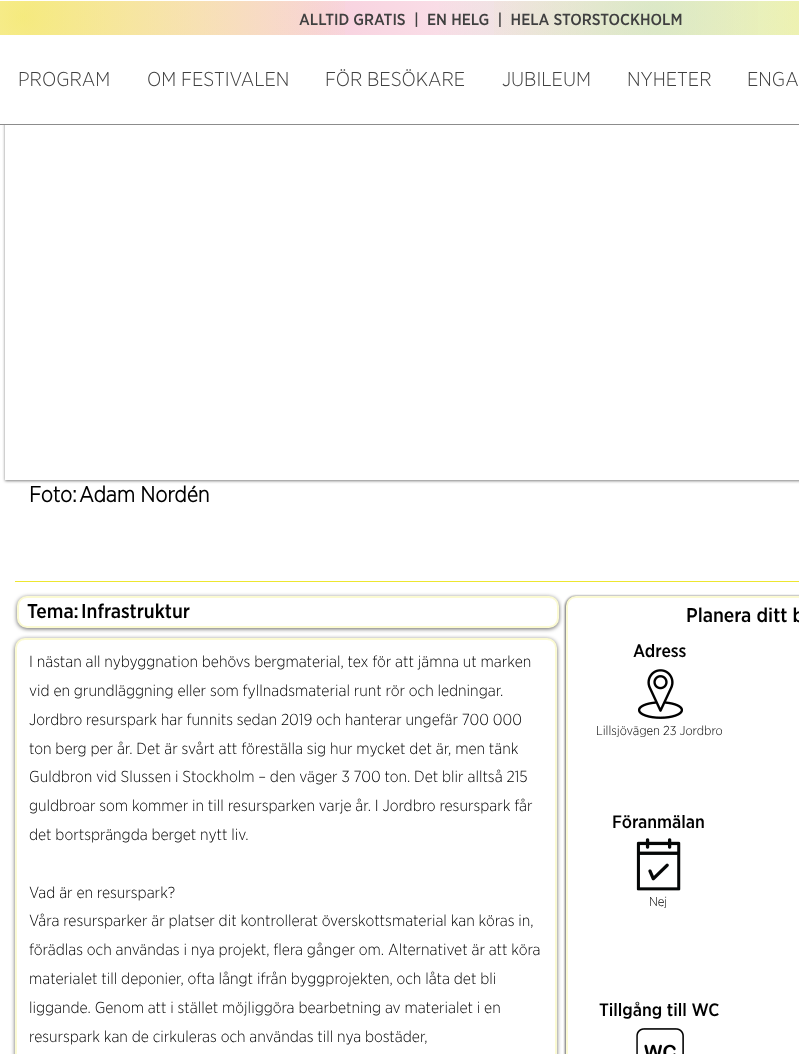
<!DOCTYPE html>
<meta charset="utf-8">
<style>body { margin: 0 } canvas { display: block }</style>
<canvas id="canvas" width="799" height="1054"></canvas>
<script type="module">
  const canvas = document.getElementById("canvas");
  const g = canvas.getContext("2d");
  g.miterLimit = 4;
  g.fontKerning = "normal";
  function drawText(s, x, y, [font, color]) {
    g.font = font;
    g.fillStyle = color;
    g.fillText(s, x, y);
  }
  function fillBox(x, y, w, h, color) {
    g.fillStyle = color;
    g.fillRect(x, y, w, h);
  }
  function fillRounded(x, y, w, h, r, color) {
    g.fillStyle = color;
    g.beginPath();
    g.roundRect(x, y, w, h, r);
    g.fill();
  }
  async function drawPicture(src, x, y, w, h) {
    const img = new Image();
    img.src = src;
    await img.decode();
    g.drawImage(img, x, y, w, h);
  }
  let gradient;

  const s1 = ["500 16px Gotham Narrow", "#404040"];
  const s2 = ["300 20px Gotham Narrow", "#404040"];
  const s3 = ["bold 22px Gotham Narrow", "#000000"];
  const s4 = ["500 20px Gotham Narrow", "#000000"];
  const s5 = ["300 16px Gotham Narrow", "#000000"];
  const s6 = ["500 18px Gotham Narrow", "#000000"];
  const s7 = ["300 13px Gotham Narrow", "#000000"];

  fillBox(0, 0, 799, 1054, "#FFFFFF");
  g.save();
  g.beginPath();
  g.moveTo(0, 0);
  g.lineTo(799, 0);
  g.lineTo(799, 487);
  g.lineTo(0, 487);
  g.closePath();
  g.moveTo(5, -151);
  g.lineTo(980, -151);
  g.lineTo(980, 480);
  g.lineTo(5, 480);
  g.closePath();
  g.clip("evenodd");
  g.fillStyle = "rgba(0, 0, 0, 0.5)";
  g.filter = "blur(1.5px)";
  g.beginPath();
  g.rect(5, -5, 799, 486);
  g.fill();
  g.filter = "none";
  g.restore();
  fillBox(0, 0, 5, 1, "#FFFFFF");
  fillBox(0, 124, 799, 1, "#8C8C8C");
  gradient = g.createRadialGradient(329, 18, 0, 329, 18, 651);
  gradient.addColorStop(0, "#F8D2DF");
  gradient.addColorStop(0.7, "#FFFFFF");
  g.fillStyle = gradient;
  g.fillRect(0, 1, 758, 34);
  gradient = g.createRadialGradient(952, 20, 0, 952, 20, 953);
  gradient.addColorStop(0, "rgba(239, 229, 34, 0.55)");
  gradient.addColorStop(0.5, "rgba(239, 229, 34, 0)");
  g.fillStyle = gradient;
  g.fillRect(494, 1, 305, 34);
  gradient = g.createRadialGradient(23, 17, 0, 23, 17, 957);
  gradient.addColorStop(0, "rgba(239, 229, 34, 0.56)");
  gradient.addColorStop(0.35, "rgba(239, 229, 34, 0)");
  g.fillStyle = gradient;
  g.fillRect(0, 1, 345, 34);
  gradient = g.createRadialGradient(655, 17, 0, 655, 17, 655);
  gradient.addColorStop(0, "rgba(194, 226, 196, 0.56)");
  gradient.addColorStop(0.35, "rgba(194, 226, 196, 0)");
  g.fillStyle = gradient;
  g.fillRect(439, 1, 360, 34);
  drawText("ALLTID GRATIS  |  EN HELG  |  HELA STORSTOCKHOLM", 299, 25, s1);
  fillBox(2, 35, 3, 89, "#FFFFFF");
  drawText("PROGRAM", 18, 86, s2);
  drawText("OM FESTIVALEN", 147, 86, s2);
  drawText("FÖR BESÖKARE", 325, 86, s2);
  drawText("JUBILEUM", 502, 86, s2);
  drawText("NYHETER", 627, 86, s2);
  drawText("ENGA", 747, 86, s2);
  drawText("Foto:", 29, 502, s3);
  drawText("Adam Nordén", 79, 502, s3);
  fillBox(15, 581, 784, 1, "#EDE630");
  g.fillStyle = "rgba(0, 0, 0, 0.6)";
  g.filter = "blur(2px)";
  g.beginPath();
  g.roundRect(17, 597, 542, 32, 10);
  g.fill();
  g.filter = "none";
  fillRounded(17, 596, 542, 32, 10, "#FFFFFF");
  g.beginPath();
  g.roundRect(18, 597, 540, 30, 9);
  g.strokeStyle = "rgba(237, 230, 48, 0.22)";
  g.lineWidth = 2;
  g.stroke();
  drawText("Tema:", 27, 618, s4);
  drawText("Infrastruktur", 81, 618, s4);
  g.fillStyle = "rgba(0, 0, 0, 0.6)";
  g.filter = "blur(2px)";
  g.beginPath();
  g.roundRect(15, 639, 542, 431, 10);
  g.fill();
  g.filter = "none";
  fillRounded(15, 638, 542, 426, 10, "#FFFFFF");
  g.beginPath();
  g.roundRect(16, 639, 540, 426, 9);
  g.stroke();
  drawText("I nästan all nybyggnation behövs bergmaterial, tex för att jämna ut marken", 29, 667, s5);
  drawText("vid en grundläggning eller som fyllnadsmaterial runt rör och ledningar.", 29, 696, s5);
  drawText("Jordbro resurspark har funnits sedan 2019 och hanterar ungefär 700 000", 29, 725, s5);
  drawText("ton berg per år. Det är svårt att föreställa sig hur mycket det är, men tänk", 29, 754, s5);
  drawText("Guldbron vid Slussen i Stockholm – den väger 3 700 ton. Det blir alltså 215", 29, 782, s5);
  drawText("guldbroar som kommer in till resursparken varje år. I Jordbro resurspark får", 29, 811, s5);
  drawText("det bortsprängda berget nytt liv.", 29, 840, s5);
  drawText("Vad är en resurspark?", 29, 898, s5);
  drawText("Våra resursparker är platser dit kontrollerat överskottsmaterial kan köras in,", 29, 926, s5);
  drawText("förädlas och användas i nya projekt, flera gånger om. Alternativet är att köra", 29, 955, s5);
  drawText("materialet till deponier, ofta långt ifrån byggprojekten, och låta det bli", 29, 984, s5);
  drawText("liggande. Genom att i stället möjliggöra bearbetning av materialet i en", 29, 1013, s5);
  drawText("resurspark kan de cirkuleras och användas till nya bostäder,", 29, 1042, s5);
  g.fillStyle = "rgba(0, 0, 0, 0.6)";
  g.filter = "blur(1px)";
  g.beginPath();
  g.roundRect(565, 596, 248, 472, 11);
  g.fill();
  g.filter = "none";
  fillRounded(566, 596, 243, 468, 10, "#FFFFFF");
  g.beginPath();
  g.roundRect(567, 597, 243, 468, 9);
  g.strokeStyle = "rgba(237, 230, 48, 0.21)";
  g.stroke();
  drawText("Planera ditt b", 686, 622, s4);
  drawText("Adress", 633, 657, s6);
  await drawPicture("pic1.png", 638, 669, 45, 50);
  drawText("Lillsjövägen 23 Jordbro", 596, 735, s7);
  drawText("Föranmälan", 612, 828, s6);
  await drawPicture("pic2.png", 636, 838, 45, 53);
  drawText("Nej", 649, 906, s7);
  drawText("Tillgång till WC", 599, 1016, s6);
  await drawPicture("pic3.png", 636, 1028, 48, 26);
</script>
